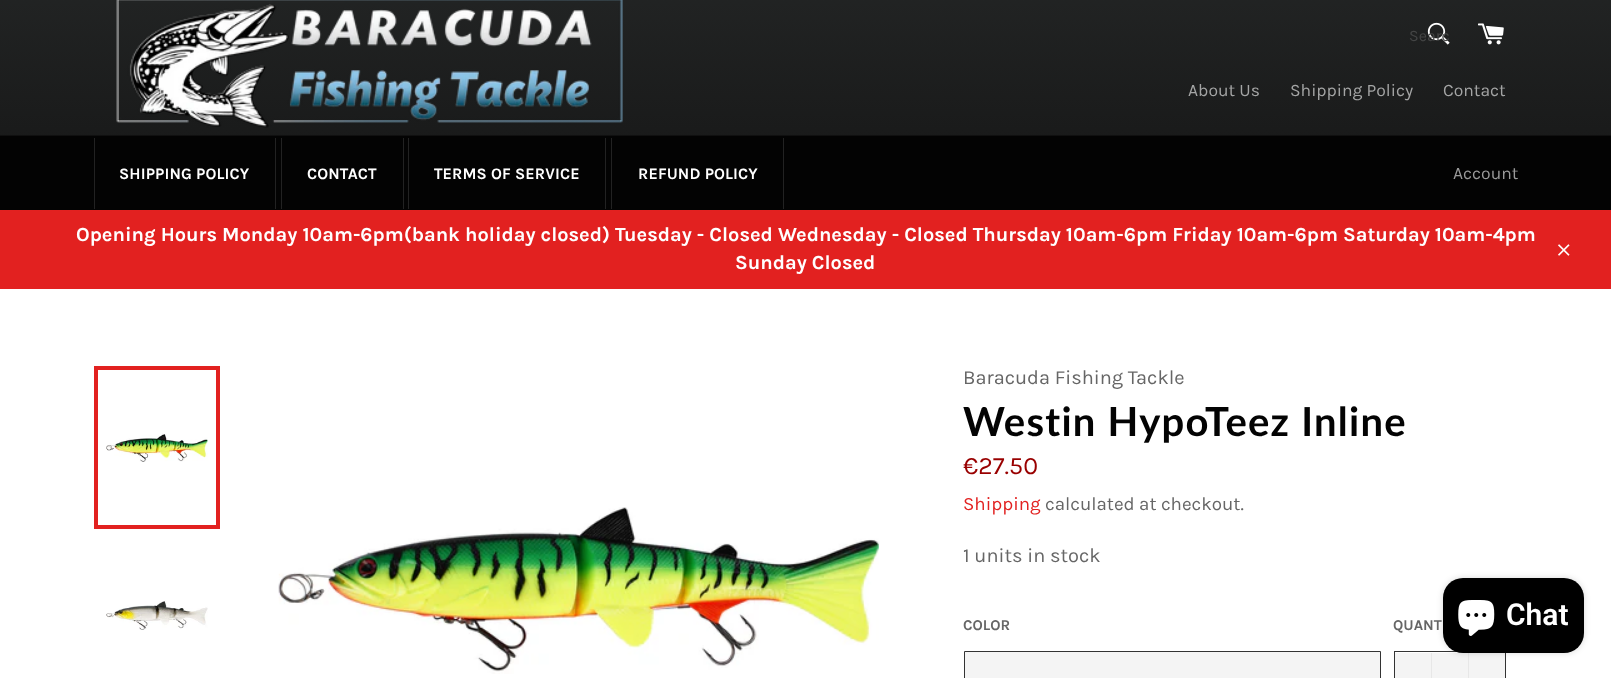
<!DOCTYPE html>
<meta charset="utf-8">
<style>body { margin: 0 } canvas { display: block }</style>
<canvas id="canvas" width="1611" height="678"></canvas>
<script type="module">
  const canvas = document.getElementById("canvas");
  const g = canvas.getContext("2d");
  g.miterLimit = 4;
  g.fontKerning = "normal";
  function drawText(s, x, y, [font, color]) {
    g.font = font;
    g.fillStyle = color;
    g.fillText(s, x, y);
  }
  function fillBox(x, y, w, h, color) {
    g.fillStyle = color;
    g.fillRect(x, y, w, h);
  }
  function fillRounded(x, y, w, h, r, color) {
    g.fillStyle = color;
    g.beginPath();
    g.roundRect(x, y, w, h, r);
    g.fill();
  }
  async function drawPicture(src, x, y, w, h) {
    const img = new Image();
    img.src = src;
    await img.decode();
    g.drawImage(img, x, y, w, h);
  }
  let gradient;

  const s1 = ["16px Karla", "#444545"];
  const s2 = ["17.5px Karla", "#A4A5A5"];
  const s3 = ["bold 16px Karla", "#FFFFFF"];
  const s4 = ["17.5px Karla", "#9A9A9A"];
  const s5 = ["bold 20px Karla", "#FFFFFF"];
  const s6 = ["20px Karla", "#666666"];
  const s7 = ["bold 40px Lato", "#030303"];
  const s8 = ["25px Karla", "#990000"];
  const s9 = ["18.75px Karla", "#E22120"];
  const s10 = ["18.75px Karla", "#666666"];
  const s11 = ["bold 15px Karla", "#666666"];
  const s12 = ["600 30px Roboto", "#FFFFFF"];

  fillBox(0, 0, 1611, 678, "#FFFFFF");
  gradient = g.createLinearGradient(806, 289, 806, -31);
  gradient.addColorStop(0, "#111111");
  gradient.addColorStop(1, "#232525");
  g.fillStyle = gradient;
  g.fillRect(0, 0, 1611, 135);
  await drawPicture("pic1.png", 116, 0, 507, 128);
  await drawPicture("pic2.png", 1427, 22, 23, 23);
  g.save();
  g.beginPath();
  g.rect(1409, 26, 40, 19);
  g.clip();
  drawText("Searc", 1409, 41, s1);
  g.restore();
  await drawPicture("pic3.png", 1478, 23, 26, 22);
  drawText("About Us", 1188, 96, s2);
  drawText("Shipping Policy", 1290, 96, s2);
  drawText("Contact", 1443, 96, s2);
  fillBox(0, 136, 1611, 74, "#030303");
  fillBox(0, 135, 1611, 1, "#101010");
  fillBox(275, 138, 1, 71, "#222222");
  fillBox(94, 138, 1, 71, "#222222");
  g.letterSpacing = "0.1px";
  drawText("SHIPPING POLICY", 119, 179, s3);
  fillBox(403, 138, 1, 71, "#222222");
  fillBox(281, 138, 1, 71, "#222222");
  drawText("CONTACT", 307, 179, s3);
  fillBox(605, 138, 1, 71, "#222222");
  fillBox(408, 138, 1, 71, "#222222");
  drawText("TERMS OF SERVICE", 434, 179, s3);
  fillBox(783, 138, 1, 71, "#222222");
  fillBox(611, 138, 1, 71, "#222222");
  drawText("REFUND POLICY", 638, 179, s3);
  g.letterSpacing = "0px";
  drawText("Account", 1453, 179, s4);
  fillBox(0, 210, 1611, 79, "#E22120");
  drawText("Opening Hours Monday 10am-6pm(bank holiday closed) Tuesday - Closed Wednesday - Closed Thursday 10am-6pm Friday 10am-6pm Saturday 10am-4pm", 76, 241, s5);
  drawText("Sunday Closed", 735, 269, s5);
  await drawPicture("pic4.png", 1558, 244, 12, 12);
  await drawPicture("pic5.png", 106, 433, 102, 29);
  g.strokeStyle = "#E22120";
  g.lineWidth = 4;
  g.strokeRect(96, 368, 122, 159);
  await drawPicture("pic6.png", 106, 600, 102, 30);
  await drawPicture("pic7.png", 278, 507, 601, 167);
  drawText("Baracuda Fishing Tackle", 963, 384, s6);
  g.letterSpacing = "1.25px";
  drawText("Westin HypoTeez Inline", 963, 436, s7);
  g.letterSpacing = "0px";
  drawText("€27.50", 963, 474, s8);
  drawText("Shipping", 963, 510, s9);
  drawText("calculated at checkout.", 1045, 510, s10);
  drawText("1 units in stock", 963, 562, s6);
  drawText("COLOR", 963, 630, s11);
  g.fillStyle = "#F4F4F4";
  g.beginPath();
  g.rect(964.5, 651.5, 416, 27);
  g.fill();
  g.strokeStyle = "#333333";
  g.lineWidth = 1;
  g.stroke();
  drawText("QUANT", 1393, 630, s11);
  g.strokeRect(1394.5, 651.5, 111, 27);
  fillBox(1395, 653, 110, 25, "#F4F4F4");
  fillBox(1431, 653, 1, 25, "#E7E7E7");
  fillBox(1468, 653, 1, 25, "#E7E7E7");
  g.fillStyle = "rgba(0, 0, 0, 0.15)";
  g.filter = "blur(3px)";
  g.beginPath();
  g.roundRect(1443, 578, 141, 75, 20);
  g.fill();
  g.filter = "none";
  fillRounded(1443, 578, 141, 75, 20, "#000000");
  await drawPicture("pic8.png", 1458, 600, 37, 36);
  drawText("Chat", 1506, 625, s12);
</script>
